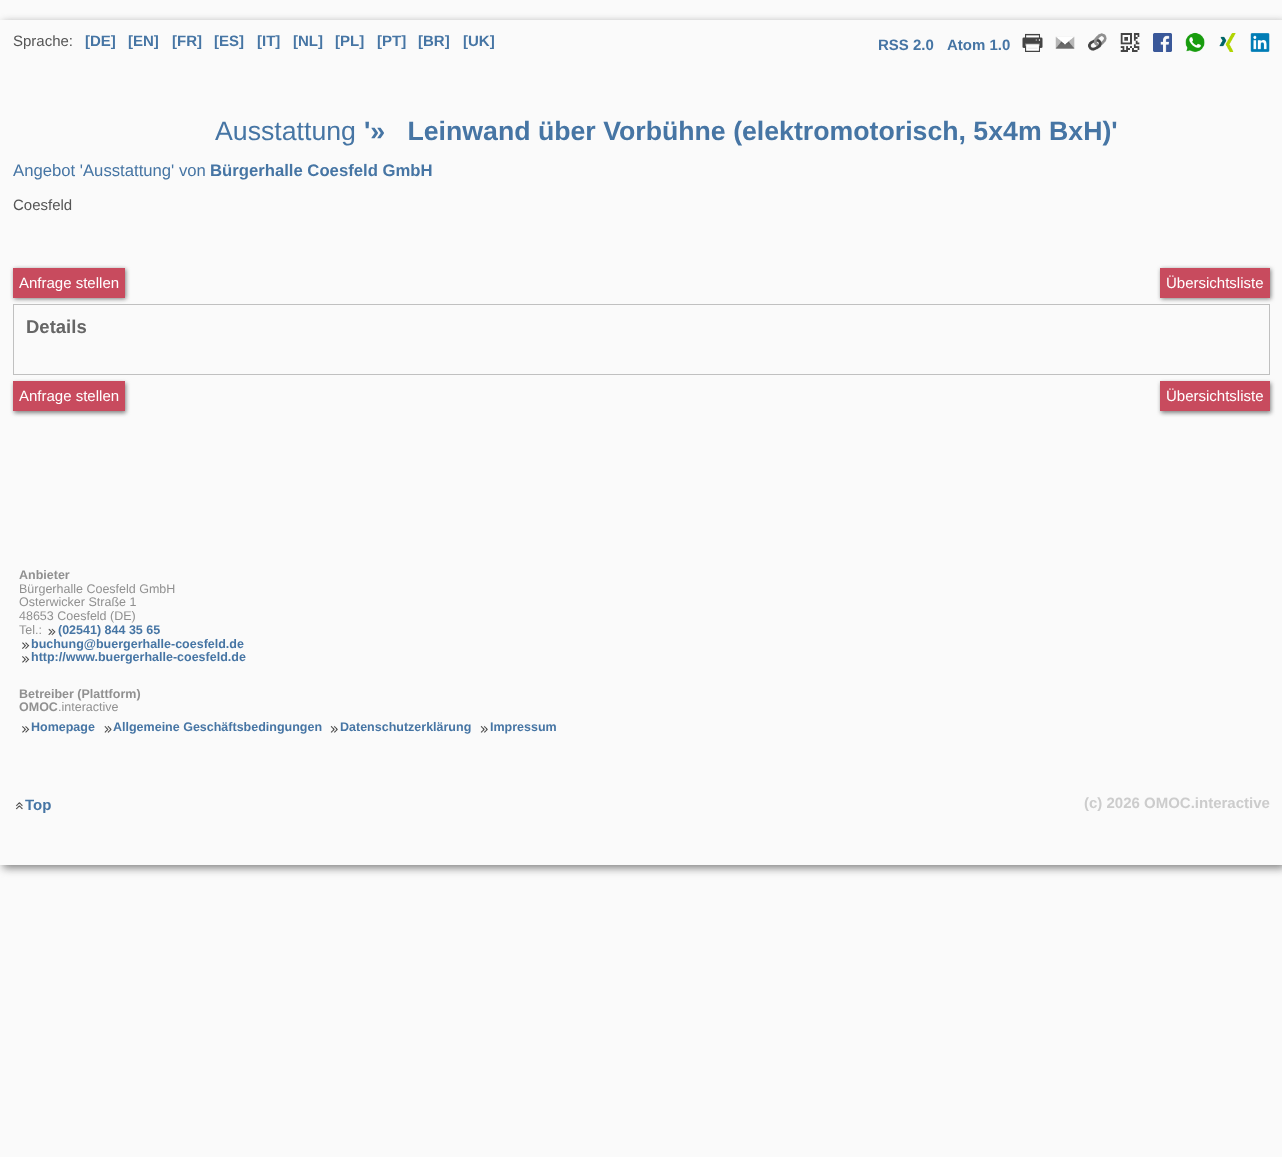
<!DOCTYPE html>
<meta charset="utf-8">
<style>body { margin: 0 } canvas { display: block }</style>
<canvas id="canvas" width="1282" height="1157"></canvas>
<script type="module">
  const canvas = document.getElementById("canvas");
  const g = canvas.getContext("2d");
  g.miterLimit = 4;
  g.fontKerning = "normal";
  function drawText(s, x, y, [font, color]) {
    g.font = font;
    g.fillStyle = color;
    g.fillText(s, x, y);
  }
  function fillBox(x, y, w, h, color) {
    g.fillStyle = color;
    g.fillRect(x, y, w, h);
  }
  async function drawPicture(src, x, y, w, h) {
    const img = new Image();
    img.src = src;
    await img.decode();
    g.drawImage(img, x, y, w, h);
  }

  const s1 = ["15px Liberation Sans", "#555555"];
  const s2 = ["bold 15px Liberation Sans", "#4675A4"];
  const s3 = ["26.7px Liberation Sans", "#4675A4"];
  const s4 = ["bold 26.7px Liberation Sans", "#4675A4"];
  const s5 = ["16.7px Liberation Sans", "#4675A4"];
  const s6 = ["bold 16.7px Liberation Sans", "#4675A4"];
  const s7 = ["15px Liberation Sans", "#FFFFFF"];
  const s8 = ["bold 18.5px Liberation Sans", "#666666"];
  const s9 = ["bold 12.5px Liberation Sans", "#909090"];
  const s10 = ["12.5px Liberation Sans", "#909090"];
  const s11 = ["bold 12.5px Liberation Sans", "#4675A4"];
  const s12 = ["bold 15px Liberation Sans", "#CCCCCC"];

  fillBox(0, 0, 1282, 1157, "#FAFAFA");
  g.save();
  g.beginPath();
  g.moveTo(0, 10);
  g.lineTo(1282, 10);
  g.lineTo(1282, 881);
  g.lineTo(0, 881);
  g.closePath();
  g.moveTo(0, 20);
  g.lineTo(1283, 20);
  g.lineTo(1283, 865);
  g.lineTo(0, 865);
  g.closePath();
  g.clip("evenodd");
  g.fillStyle = "#808080";
  g.filter = "blur(4px)";
  g.beginPath();
  g.rect(3, 23, 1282, 845);
  g.fill();
  g.filter = "none";
  g.restore();
  drawText("Sprache:", 13, 46, s1);
  drawText("[DE]", 85, 46, s2);
  drawText("[EN]", 128, 46, s2);
  drawText("[FR]", 172, 46, s2);
  drawText("[ES]", 214, 46, s2);
  drawText("[IT]", 257, 46, s2);
  drawText("[NL]", 293, 46, s2);
  drawText("[PL]", 335, 46, s2);
  drawText("[PT]", 377, 46, s2);
  drawText("[BR]", 418, 46, s2);
  drawText("[UK]", 463, 46, s2);
  drawText("RSS 2.0", 878, 50, s2);
  drawText("Atom 1.0", 947, 50, s2);
  await drawPicture("pic1.png", 1022, 33, 21, 19);
  await drawPicture("pic2.png", 1055, 36, 20, 13);
  await drawPicture("pic3.png", 1088, 33, 19, 18);
  await drawPicture("pic4.png", 1120, 33, 20, 19);
  await drawPicture("pic5.png", 1153, 33, 19, 19);
  await drawPicture("pic6.png", 1185, 32, 20, 20);
  await drawPicture("pic7.png", 1219, 33, 17, 19);
  await drawPicture("pic8.png", 1250, 33, 20, 19);
  drawText("Ausstattung", 215, 140, s3);
  drawText("'»   Leinwand über Vorbühne (elektromotorisch, 5x4m BxH)'", 364, 140, s4);
  drawText("Angebot 'Ausstattung' von", 13, 176, s5);
  drawText("Bürgerhalle Coesfeld GmbH", 210, 176, s6);
  drawText("Coesfeld", 13, 210, s1);
  g.strokeStyle = "#C0C0C0";
  g.strokeRect(13.5, 304.5, 1256, 70);
  g.fillStyle = "#808080";
  g.filter = "blur(2px)";
  g.beginPath();
  g.rect(14, 269, 112, 30);
  g.fill();
  g.filter = "none";
  fillBox(13, 268, 112, 30, "#C84B5E");
  drawText("Anfrage stellen", 19, 288, s7);
  g.fillStyle = "#808080";
  g.filter = "blur(2px)";
  g.beginPath();
  g.rect(1161, 269, 110, 30);
  g.fill();
  g.filter = "none";
  fillBox(1160, 268, 110, 30, "#C84B5E");
  drawText("Übersichtsliste", 1166, 288, s7);
  drawText("Details", 26, 333, s8);
  g.fillStyle = "#808080";
  g.filter = "blur(2px)";
  g.beginPath();
  g.rect(14, 383, 112, 30);
  g.fill();
  g.filter = "none";
  fillBox(13, 381, 112, 30, "#C84B5E");
  drawText("Anfrage stellen", 19, 401, s7);
  g.fillStyle = "#808080";
  g.filter = "blur(2px)";
  g.beginPath();
  g.rect(1161, 383, 110, 30);
  g.fill();
  g.filter = "none";
  fillBox(1160, 381, 110, 30, "#C84B5E");
  drawText("Übersichtsliste", 1166, 401, s7);
  drawText("Anbieter", 19, 579, s9);
  drawText("Bürgerhalle Coesfeld GmbH", 19, 593, s10);
  drawText("Osterwicker Straße 1", 19, 606, s10);
  drawText("48653 Coesfeld (DE)", 19, 620, s10);
  drawText("Tel.:", 19, 634, s10);
  await drawPicture("pic9.png", 48, 628, 8, 8);
  drawText("(02541) 844 35 65", 58, 634, s11);
  await drawPicture("pic10.png", 22, 642, 8, 7);
  drawText("buchung@buergerhalle-coesfeld.de", 31, 648, s11);
  await drawPicture("pic11.png", 22, 656, 8, 7);
  drawText("http://www.buergerhalle-coesfeld.de", 31, 661, s11);
  drawText("Betreiber (Plattform)", 19, 698, s9);
  drawText("OMOC", 19, 711, s9);
  drawText(".interactive", 58, 711, s10);
  await drawPicture("pic11.png", 22, 726, 8, 7);
  drawText("Homepage", 31, 731, s11);
  await drawPicture("pic12.png", 104, 725, 8, 8);
  drawText("Allgemeine Geschäftsbedingungen", 113, 731, s11);
  await drawPicture("pic13.png", 330, 725, 8, 8);
  drawText("Datenschutzerklärung", 340, 731, s11);
  await drawPicture("pic13.png", 480, 725, 8, 8);
  drawText("Impressum", 490, 731, s11);
  await drawPicture("pic14.png", 15, 802, 8, 8);
  drawText("Top", 25, 810, s2);
  drawText("(c) 2026 OMOC.interactive", 1084, 808, s12);
</script>
